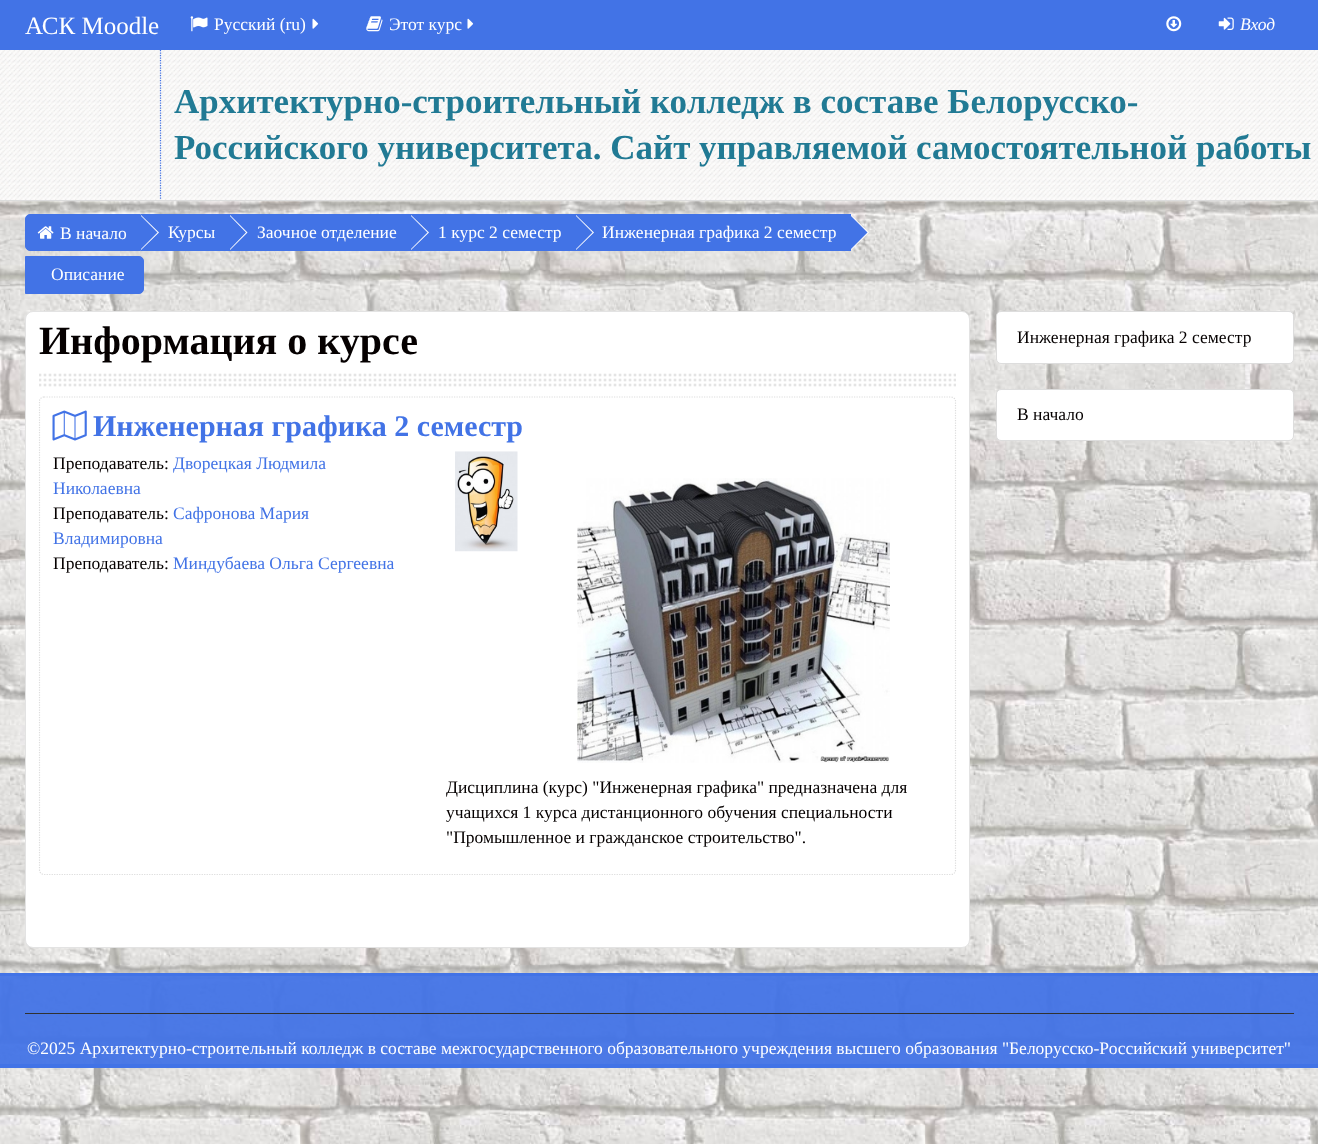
<!DOCTYPE html>
<meta charset="utf-8">
<style>body { margin: 0 } canvas { display: block }</style>
<canvas id="canvas" width="1318" height="1144"></canvas>
<script type="module">
  const canvas = document.getElementById("canvas");
  const g = canvas.getContext("2d");
  g.miterLimit = 4;
  g.fontKerning = "normal";
  function drawText(s, x, y, [font, color]) {
    g.font = font;
    g.fillStyle = color;
    g.fillText(s, x, y);
  }
  function fillBox(x, y, w, h, color) {
    g.fillStyle = color;
    g.fillRect(x, y, w, h);
  }
  async function drawPicture(src, x, y, w, h) {
    const img = new Image();
    img.src = src;
    await img.decode();
    g.drawImage(img, x, y, w, h);
  }

  const s1 = ["25px Liberation Serif", "#FFFFFF"];
  const s2 = ["17.5px Liberation Serif", "#FFFFFF"];
  const s3 = ["italic 17.5px Liberation Serif", "#FFFFFF"];
  const s4 = ["bold 35px Liberation Serif", "#217A94"];
  const s5 = ["bold 40px Liberation Serif", "#050000"];
  const s6 = ["bold 30px Liberation Serif", "#4273E6"];
  const s7 = ["17.5px Liberation Serif", "#050000"];
  const s8 = ["17.5px Liberation Serif", "#4273E6"];

  fillBox(0, 0, 1318, 1144, "#FFFFFF");
  await drawPicture("pic1.png", 0, 201, 1318, 943);
  fillBox(0, 0, 1318, 50, "#4273E6");
  drawText("АСК Moodle", 25, 34, s1);
  await drawPicture("pic2.png", 190, 16, 18, 16);
  drawText("Русский (ru)", 214, 30, s2);
  await drawPicture("pic3.png", 312, 18, 7, 11);
  await drawPicture("pic4.png", 366, 16, 17, 16);
  drawText("Этот курс", 389, 30, s2);
  await drawPicture("pic3.png", 467, 18, 7, 11);
  await drawPicture("pic5.png", 1166, 16, 16, 16);
  await drawPicture("pic6.png", 1218, 17, 16, 13);
  drawText("Вход", 1240, 30, s3);
  await drawPicture("pic7.png", 0, 50, 1318, 152);
  fillBox(0, 200, 1318, 1, "#DDDDDD");
  g.beginPath();
  g.moveTo(160.5, 50);
  g.lineTo(160.5, 200);
  g.strokeStyle = "#4273E6";
  g.lineWidth = 1.2;
  g.setLineDash([1.25, 1.25]);
  g.stroke();
  drawText("Архитектурно-строительный колледж в составе Белорусско-", 174, 113, s4);
  drawText("Российского университета. Сайт управляемой самостоятельной работы", 174, 159, s4);
  g.fillStyle = "#4273E6";
  g.beginPath();
  g.roundRect(25.5, 214.5, 115, 36, [4.5, 0, 0, 4.5]);
  g.fill();
  g.lineWidth = 1;
  g.setLineDash([]);
  g.stroke();
  fillBox(141, 214, 710, 37, "#4273E6");
  g.fillStyle = "#FFFFFF";
  g.beginPath();
  g.moveTo(141, 250);
  g.lineTo(141, 215);
  g.lineTo(159, 232.5);
  g.closePath();
  g.fill();
  g.fillStyle = "#4273E6";
  g.beginPath();
  g.moveTo(140, 250);
  g.lineTo(140, 215);
  g.lineTo(157.5, 232.5);
  g.closePath();
  g.fill();
  await drawPicture("pic8.png", 37, 226, 17, 13);
  drawText("В начало", 60, 239, s2);
  g.beginPath();
  g.moveTo(230, 250);
  g.lineTo(230, 215);
  g.lineTo(247.5, 232.5);
  g.closePath();
  g.fill();
  g.fillStyle = "#4273E6";
  g.beginPath();
  g.moveTo(229, 250);
  g.lineTo(229, 215);
  g.lineTo(246, 232.5);
  g.closePath();
  g.fill();
  drawText("Курсы", 168, 238, s2);
  g.beginPath();
  g.moveTo(411, 250);
  g.lineTo(411, 215);
  g.lineTo(429, 232.5);
  g.closePath();
  g.fill();
  g.fillStyle = "#4273E6";
  g.beginPath();
  g.moveTo(410, 250);
  g.lineTo(410, 215);
  g.lineTo(427.5, 232.5);
  g.closePath();
  g.fill();
  drawText("Заочное отделение", 257, 238, s2);
  g.beginPath();
  g.moveTo(576, 250);
  g.lineTo(576, 215);
  g.lineTo(594, 232.5);
  g.closePath();
  g.fill();
  g.fillStyle = "#4273E6";
  g.beginPath();
  g.moveTo(575, 250);
  g.lineTo(575, 215);
  g.lineTo(592.5, 232.5);
  g.closePath();
  g.fill();
  drawText("1 курс 2 семестр", 438, 238, s2);
  g.beginPath();
  g.moveTo(851, 250);
  g.lineTo(851, 215);
  g.lineTo(869, 232.5);
  g.closePath();
  g.fill();
  g.fillStyle = "#4273E6";
  g.beginPath();
  g.moveTo(850, 250);
  g.lineTo(850, 215);
  g.lineTo(867.5, 232.5);
  g.closePath();
  g.fill();
  drawText("Инженерная графика 2 семестр", 602, 238, s2);
  g.fillStyle = "#4273E6";
  g.beginPath();
  g.roundRect(25.5, 256.5, 118, 37, [0, 4.5, 4.5, 0]);
  g.fill();
  g.stroke();
  drawText("Описание", 51, 280, s2);
  g.beginPath();
  g.roundRect(25.5, 311.5, 944, 636, 7.5);
  g.fill();
  g.strokeStyle = "#E3E3E3";
  g.stroke();
  drawText("Информация о курсе", 39, 354, s5);
  await drawPicture("pic9.png", 39, 373, 917, 14);
  g.beginPath();
  g.moveTo(44, 397);
  g.lineTo(951, 397);
  g.bezierCurveTo(953.5, 397, 955.5, 399, 955.5, 401);
  g.lineTo(955.5, 870);
  g.bezierCurveTo(955.5, 872.5, 953.5, 874.5, 951, 874.5);
  g.lineTo(44, 874.5);
  g.bezierCurveTo(41.5, 874.5, 39.5, 872.5, 39.5, 870);
  g.lineTo(39.5, 401);
  g.bezierCurveTo(39.5, 399, 41.5, 397, 44, 397);
  g.closePath();
  g.strokeStyle = "#DDDDDD";
  g.lineWidth = 1.2;
  g.setLineDash([1.25, 1.25]);
  g.stroke();
  await drawPicture("pic10.png", 52, 410, 35, 31);
  drawText("Инженерная графика 2 семестр", 93, 436, s6);
  drawText("Преподаватель:", 53, 469, s7);
  drawText("Дворецкая Людмила", 173, 469, s8);
  drawText("Николаевна", 53, 494, s8);
  drawText("Преподаватель:", 53, 519, s7);
  drawText("Сафронова Мария", 173, 519, s8);
  drawText("Владимировна", 53, 544, s8);
  drawText("Преподаватель:", 53, 569, s7);
  drawText("Миндубаева Ольга Сергеевна", 173, 569, s8);
  await drawPicture("pic11.png", 455, 451, 63, 101);
  await drawPicture("pic12.png", 577, 478, 313, 285);
  drawText("Дисциплина (курс) \"Инженерная графика\" предназначена для", 446, 793, s7);
  drawText("учащихся 1 курса дистанционного обучения специальности", 446, 818, s7);
  drawText("\"Промышленное и гражданское строительство\".", 446, 843, s7);
  g.fillStyle = "#FFFFFF";
  g.beginPath();
  g.roundRect(996.5, 311.5, 297, 52, 4.5);
  g.fill();
  g.lineWidth = 1;
  g.setLineDash([]);
  g.stroke();
  drawText("Инженерная графика 2 семестр", 1017, 343, s7);
  g.fillStyle = "#FFFFFF";
  g.beginPath();
  g.roundRect(996.5, 389.5, 297, 51, 4.5);
  g.fill();
  g.stroke();
  drawText("В начало", 1017, 420, s7);
  fillBox(0, 976, 1318, 88, "rgba(66, 115, 230, 0.95)");
  fillBox(0, 973, 1318, 3, "#4273E6");
  fillBox(0, 1064, 1318, 4, "#4273E6");
  fillBox(25, 1013, 1269, 1, "#313131");
  drawText("©2025 Архитектурно-строительный колледж в составе межгосударственного образовательного учреждения высшего образования \"Белорусско-Российский университет\"", 27, 1054, s2);
</script>
